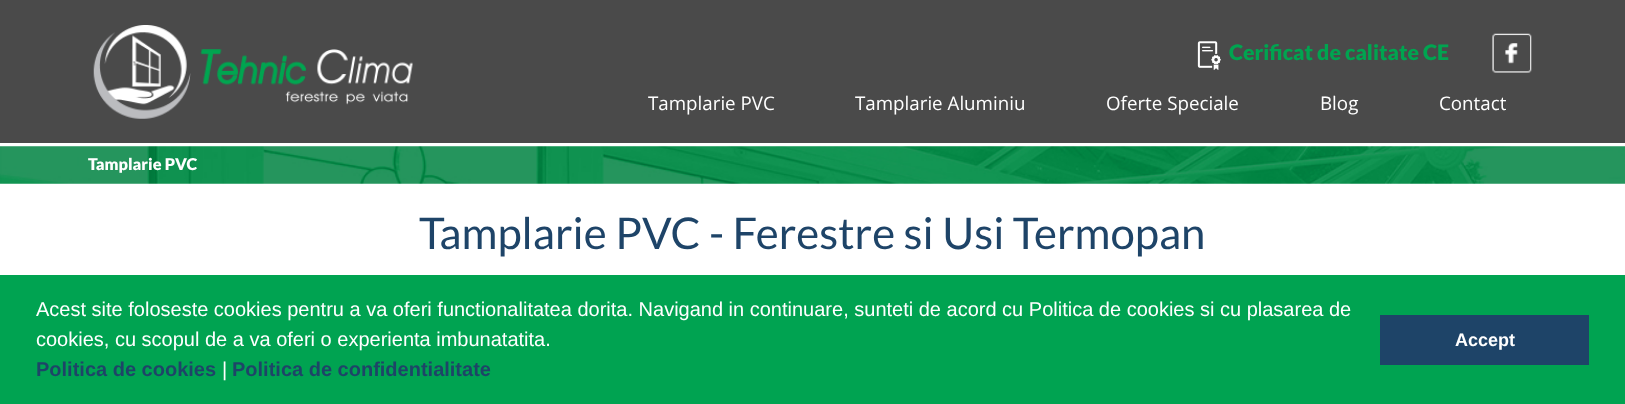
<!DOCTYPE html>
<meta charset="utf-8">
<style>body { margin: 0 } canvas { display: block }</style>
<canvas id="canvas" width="1625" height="404"></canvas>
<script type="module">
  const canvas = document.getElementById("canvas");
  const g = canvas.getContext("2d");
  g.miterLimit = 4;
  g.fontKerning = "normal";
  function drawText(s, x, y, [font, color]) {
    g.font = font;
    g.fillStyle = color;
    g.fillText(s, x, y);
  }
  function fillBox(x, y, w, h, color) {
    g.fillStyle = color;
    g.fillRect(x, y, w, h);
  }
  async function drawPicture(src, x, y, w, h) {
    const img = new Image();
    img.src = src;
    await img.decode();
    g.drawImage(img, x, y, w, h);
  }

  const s1 = ["900 21.25px Lato", "#00A450"];
  const s2 = ["18.75px Open Sans", "#FFFFFF"];
  const s3 = ["900 16.25px Lato", "#FFFFFF"];
  const s4 = ["43.75px Lato", "#1E4468"];
  const s5 = ["20px Liberation Sans", "#FFFFFF"];
  const s6 = ["bold 20px Liberation Sans", "#1E4468"];
  const s7 = ["bold 18px Liberation Sans", "#FFFFFF"];

  fillBox(0, 0, 1625, 404, "#FFFFFF");
  fillBox(0, 0, 1625, 143, "#4A4A4A");
  await drawPicture("pic1.png", 93, 25, 320, 94);
  await drawPicture("pic2.png", 1197, 41, 24, 29);
  drawText("Cerificat de calitate CE", 1229, 60, s1);
  await drawPicture("pic3.png", 1492, 33, 40, 40);
  drawText("Tamplarie PVC", 648, 110, s2);
  drawText("Tamplarie Aluminiu", 855, 110, s2);
  drawText("Oferte Speciale", 1106, 110, s2);
  drawText("Blog", 1320, 110, s2);
  drawText("Contact", 1439, 110, s2);
  await drawPicture("pic4.png", 0, 146, 1625, 38);
  drawText("Tamplarie PVC", 88, 170, s3);
  drawText("Tamplarie PVC - Ferestre si Usi Termopan", 419, 249, s4);
  fillBox(0, 275, 1625, 129, "#00A351");
  drawText("Acest site foloseste cookies pentru a va oferi functionalitatea dorita. Navigand in continuare, sunteti de acord cu Politica de cookies si cu plasarea de", 36, 316, s5);
  drawText("cookies, cu scopul de a va oferi o experienta imbunatatita.", 36, 346, s5);
  drawText("Politica de cookies", 36, 376, s6);
  drawText("|", 222, 376, s5);
  drawText("Politica de confidentialitate", 232, 376, s6);
  fillBox(1380, 315, 209, 50, "#1E4468");
  drawText("Accept", 1455, 346, s7);
</script>
